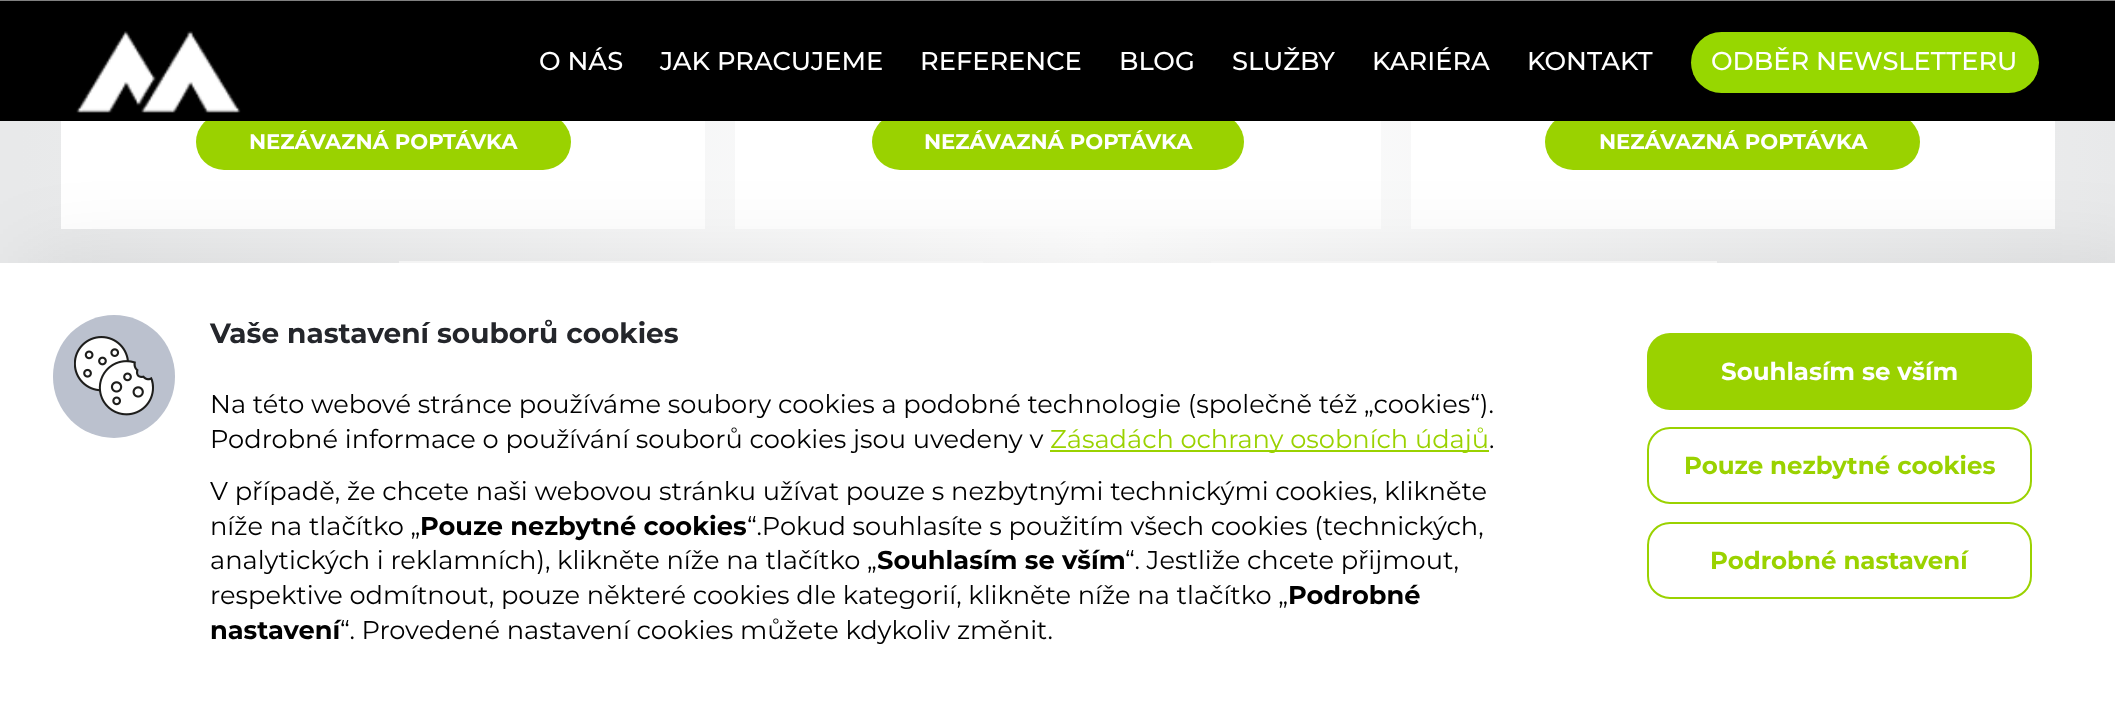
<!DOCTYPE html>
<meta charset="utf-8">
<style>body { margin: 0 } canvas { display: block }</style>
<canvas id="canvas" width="2115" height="719"></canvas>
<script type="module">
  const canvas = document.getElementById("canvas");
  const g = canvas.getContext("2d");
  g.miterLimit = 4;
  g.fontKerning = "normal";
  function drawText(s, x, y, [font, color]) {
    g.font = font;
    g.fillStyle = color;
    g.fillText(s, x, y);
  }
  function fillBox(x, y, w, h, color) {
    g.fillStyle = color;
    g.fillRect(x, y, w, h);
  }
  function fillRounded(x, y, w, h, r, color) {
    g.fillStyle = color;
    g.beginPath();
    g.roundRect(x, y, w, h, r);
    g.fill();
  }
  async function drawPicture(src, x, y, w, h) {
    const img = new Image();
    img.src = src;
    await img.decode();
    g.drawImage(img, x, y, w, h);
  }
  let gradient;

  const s1 = ["500 25.7px Montserrat", "#FFFFFF"];
  const s2 = ["bold 21.2px Montserrat", "#FFFFFF"];
  const s3 = ["bold 28px Montserrat", "#24262B"];
  const s4 = ["25.7px Montserrat", "#000000"];
  const s5 = ["25.7px Montserrat", "#9AD200"];
  const s6 = ["bold 25.7px Montserrat", "#000000"];
  const s7 = ["bold 24.5px Montserrat", "#FFFFFF"];
  const s8 = ["bold 24.5px Montserrat", "#9AD200"];

  fillBox(0, 0, 2115, 719, "#FFFFFF");
  gradient = g.createLinearGradient(0, -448, 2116, -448);
  gradient.addColorStop(0.01, "#E8E9EA");
  gradient.addColorStop(0.52, "#FFFFFF");
  gradient.addColorStop(1, "#E8E9EA");
  g.fillStyle = gradient;
  g.fillRect(0, 121, 2115, 142);
  fillBox(61, 121, 644, 108, "#FFFFFF");
  fillRounded(196, 114, 375, 56, 28, "#9AD200");
  fillBox(735, 121, 646, 108, "#FFFFFF");
  fillRounded(872, 114, 372, 56, 28, "#9AD200");
  fillBox(1411, 121, 644, 108, "#FFFFFF");
  fillRounded(1545, 114, 375, 56, 28, "#9AD200");
  fillBox(0, 1, 2115, 120, "#000000");
  fillBox(0, 0, 2115, 1, "#808080");
  await drawPicture("pic1.png", 76, 31, 165, 82);
  drawText("O NÁS", 539, 70, s1);
  drawText("JAK PRACUJEME", 660, 70, s1);
  drawText("REFERENCE", 920, 70, s1);
  drawText("BLOG", 1119, 70, s1);
  drawText("SLUŽBY", 1232, 70, s1);
  drawText("KARIÉRA", 1372, 70, s1);
  drawText("KONTAKT", 1527, 70, s1);
  fillRounded(1691, 32, 348, 61, 30.5, "#97D700");
  drawText("ODBĚR NEWSLETTERU", 1711, 70, s1);
  drawText("NEZÁVAZNÁ POPTÁVKA", 249, 149, s2);
  drawText("NEZÁVAZNÁ POPTÁVKA", 924, 149, s2);
  drawText("NEZÁVAZNÁ POPTÁVKA", 1599, 149, s2);
  fillBox(399, 261, 584, 2, "#FFFFFF");
  fillBox(1211, 261, 506, 2, "#FFFFFF");
  g.fillStyle = "rgba(0, 0, 0, 0.09)";
  g.filter = "blur(44px)";
  g.beginPath();
  g.rect(28, 263, 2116, 456);
  g.fill();
  g.filter = "none";
  fillBox(0, 263, 2115, 456, "#FFFFFF");
  fillRounded(53, 315, 122, 123, 61, "#BBC1CE");
  await drawPicture("pic2.png", 74, 336, 80, 80);
  drawText("Vaše nastavení souborů cookies", 210, 343, s3);
  drawText("Na této webové stránce používáme soubory cookies a podobné technologie (společně též „cookies“).", 210, 413, s4);
  drawText("Podrobné informace o používání souborů cookies jsou uvedeny v", 210, 448, s4);
  fillBox(1050, 450, 439, 2, "#9AD200");
  drawText("Zásadách ochrany osobních údajů", 1050, 448, s5);
  drawText(".", 1489, 448, s4);
  drawText("V případě, že chcete naši webovou stránku užívat pouze s nezbytnými technickými cookies, klikněte", 210, 500, s4);
  drawText("níže na tlačítko „", 210, 535, s4);
  drawText("Pouze nezbytné cookies", 420, 535, s6);
  drawText("“.Pokud souhlasíte s použitím všech cookies (technických,", 747, 535, s4);
  drawText("analytických i reklamních), klikněte níže na tlačítko „", 210, 569, s4);
  drawText("Souhlasím se vším", 877, 569, s6);
  drawText("“. Jestliže chcete přijmout,", 1125, 569, s4);
  drawText("respektive odmítnout, pouze některé cookies dle kategorií, klikněte níže na tlačítko „", 210, 604, s4);
  drawText("Podrobné", 1288, 604, s6);
  drawText("nastavení", 210, 639, s6);
  drawText("“. Provedené nastavení cookies můžete kdykoliv změnit.", 340, 639, s4);
  fillRounded(1647, 333, 385, 77, 23, "#9AD200");
  drawText("Souhlasím se vším", 1721, 380, s7);
  g.beginPath();
  g.roundRect(1648, 428, 383, 75, 22);
  g.strokeStyle = "#9AD200";
  g.lineWidth = 2;
  g.stroke();
  drawText("Pouze nezbytné cookies", 1684, 474, s8);
  g.beginPath();
  g.roundRect(1648, 523, 383, 75, 22);
  g.stroke();
  drawText("Podrobné nastavení", 1710, 569, s8);
</script>
